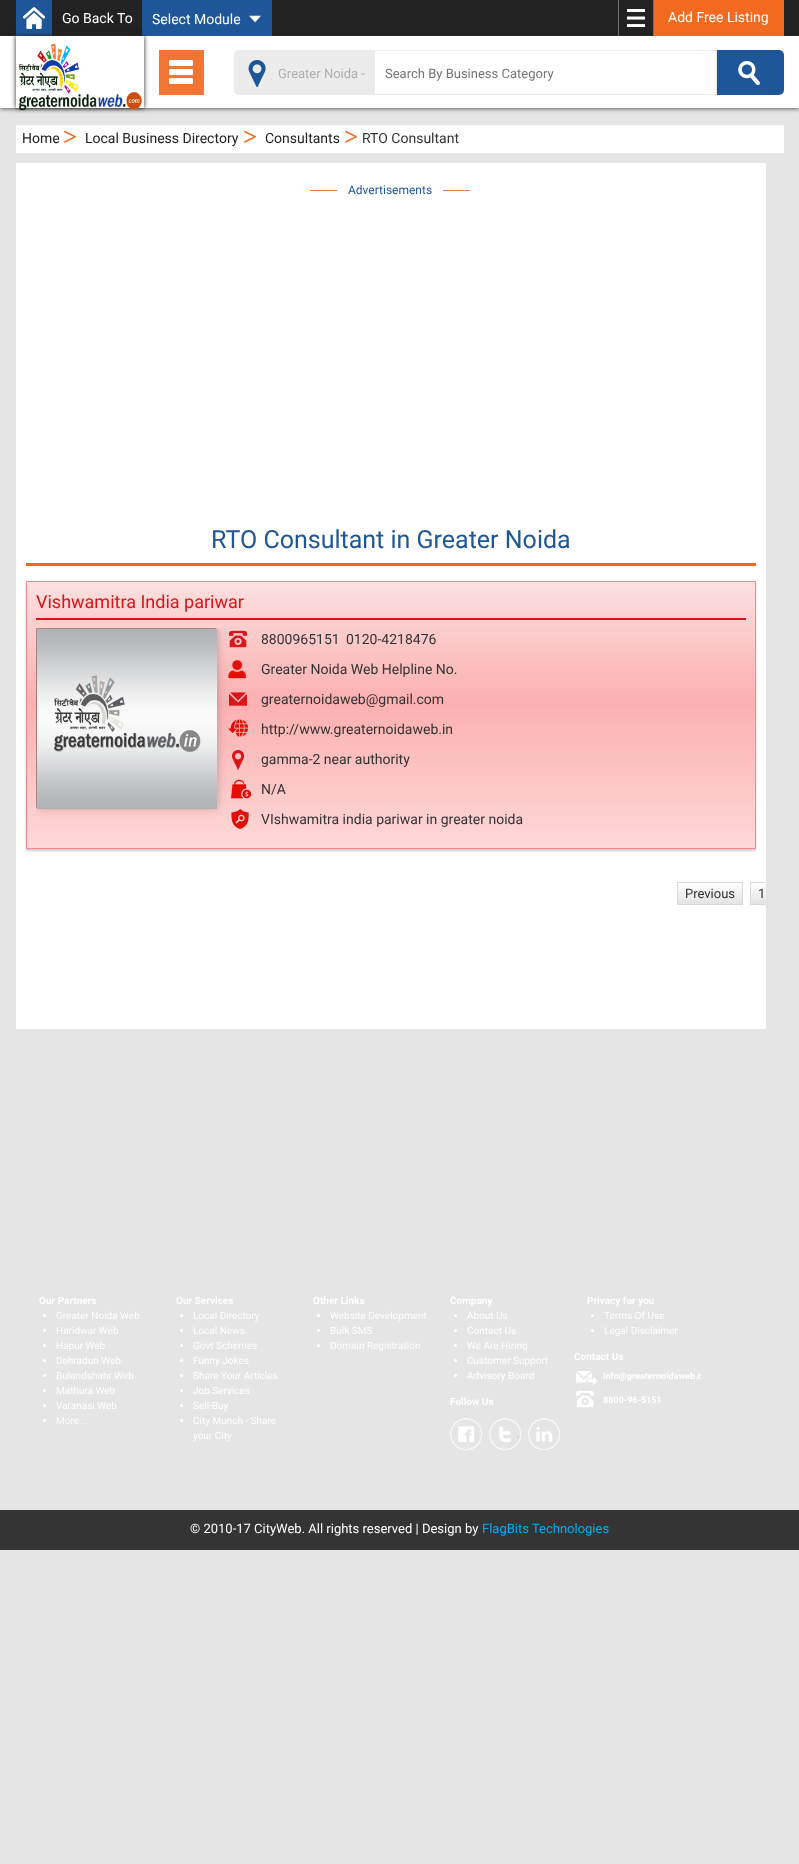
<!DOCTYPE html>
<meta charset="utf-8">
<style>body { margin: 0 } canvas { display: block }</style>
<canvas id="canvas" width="799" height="1864"></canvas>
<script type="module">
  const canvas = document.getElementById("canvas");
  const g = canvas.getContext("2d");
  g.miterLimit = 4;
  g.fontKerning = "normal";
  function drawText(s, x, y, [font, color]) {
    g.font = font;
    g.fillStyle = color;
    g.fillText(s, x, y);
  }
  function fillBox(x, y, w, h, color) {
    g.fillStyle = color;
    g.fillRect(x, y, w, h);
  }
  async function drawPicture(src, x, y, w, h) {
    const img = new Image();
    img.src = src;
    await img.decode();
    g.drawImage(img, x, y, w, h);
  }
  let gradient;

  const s1 = ["14px Roboto", "#FFFFFF"];
  const s2 = ["13px Roboto", "#B0B0B0"];
  const s3 = ["13px Roboto", "#757575"];
  const s4 = ["14px Roboto", "#212121"];
  const s5 = ["bold 25px Liberation Serif", "#F26920"];
  const s6 = ["14px Roboto", "#333333"];
  const s7 = ["12px Roboto", "#F26920"];
  const s8 = ["12px Roboto", "#1E5799"];
  const s9 = ["25px Roboto", "#1E5799"];
  const s10 = ["18px Roboto", "#DA1418"];
  const s11 = ["13px Roboto", "#333333"];
  const s12 = ["bold 10px Roboto", "#FFFFFF"];
  const s13 = ["10px Roboto", "#FFFFFF"];
  const s14 = ["bold 9px Roboto", "#FFFFFF"];
  const s15 = ["13px Roboto", "#FFFFFF"];
  const s16 = ["13px Roboto", "#01ADF8"];

  fillBox(0, 0, 799, 1864, "#E5E5E5");
  fillBox(0, 0, 799, 35, "#222222");
  fillBox(0, 35, 799, 1, "#2F3033");
  g.fillStyle = "#212121";
  g.filter = "blur(2.5px)";
  g.beginPath();
  g.rect(0, 36, 799, 72);
  g.fill();
  g.filter = "none";
  fillBox(16, 0, 36, 36, "#1E5799");
  await drawPicture("pic1.png", 23, 7, 22, 22);
  drawText("Go Back To", 62, 23, s1);
  fillBox(142, 0, 130, 36, "#1E5799");
  await drawPicture("pic2.png", 249, 15, 12, 8);
  drawText("Select Module", 152, 24, s1);
  await drawPicture("pic3.png", 627, 9, 18, 18);
  fillBox(653, 0, 1, 36, "#766E6E");
  fillBox(618, 0, 1, 36, "#766E6E");
  fillBox(654, 0, 130, 36, "#F26920");
  drawText("Add Free Listing", 668, 22, s1);
  fillBox(0, 36, 799, 72, "#FFFFFF");
  g.save();
  g.beginPath();
  g.moveTo(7, 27);
  g.lineTo(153, 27);
  g.lineTo(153, 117);
  g.lineTo(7, 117);
  g.closePath();
  g.moveTo(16, 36);
  g.lineTo(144, 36);
  g.lineTo(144, 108);
  g.lineTo(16, 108);
  g.closePath();
  g.clip("evenodd");
  g.fillStyle = "#212121";
  g.filter = "blur(2.5px)";
  g.beginPath();
  g.rect(16, 36, 128, 72);
  g.fill();
  g.filter = "none";
  g.restore();
  await drawPicture("pic4.png", 18, 43, 124, 68);
  fillBox(159, 50, 45, 45, "#F37533");
  await drawPicture("pic5.png", 169, 60, 24, 24);
  g.fillStyle = "#ECECEC";
  g.beginPath();
  g.roundRect(234, 50, 140, 45, [5, 0, 0, 5]);
  g.fill();
  await drawPicture("pic6.png", 248, 60, 18, 27);
  drawText("Greater Noida -", 278, 78, s2);
  g.strokeStyle = "#ECECEC";
  g.strokeRect(374.5, 50.5, 342, 44);
  drawText("Search By Business Category", 385, 78, s3);
  g.fillStyle = "#1E5799";
  g.beginPath();
  g.roundRect(717, 50, 67, 45, [0, 5, 5, 0]);
  g.fill();
  await drawPicture("pic7.png", 738, 61, 22, 24);
  fillBox(16, 125, 768, 28, "#FFFFFF");
  drawText("Home", 22, 143, s4);
  drawText(">", 63, 145, s5);
  drawText("Local Business Directory", 85, 143, s4);
  drawText(">", 243, 145, s5);
  drawText("Consultants", 265, 143, s4);
  drawText(">", 344, 145, s5);
  drawText("RTO Consultant", 362, 143, s6);
  fillBox(16, 163, 750, 866, "#FFFFFF");
  drawText("_____", 310, 190, s7);
  drawText("Advertisements", 348, 194, s8);
  drawText("_____", 443, 190, s7);
  fillBox(26, 563, 730, 3, "#F26920");
  drawText("RTO Consultant in Greater Noida", 211, 548, s9);
  g.fillStyle = "rgba(0, 0, 0, 0.2)";
  g.filter = "blur(1px)";
  g.beginPath();
  g.rect(26, 583, 730, 268);
  g.fill();
  g.filter = "none";
  gradient = g.createLinearGradient(391, 582, 391, 848);
  gradient.addColorStop(0, "#FCE0E0");
  gradient.addColorStop(0.45, "#FCB0B0");
  gradient.addColorStop(1, "#FFD8D8");
  g.fillStyle = gradient;
  g.fillRect(27, 582, 728, 266);
  g.strokeStyle = "#F18C92";
  g.strokeRect(26.5, 581.5, 729, 267);
  fillBox(36, 618, 710, 2, "#DA1418");
  drawText("Vishwamitra India pariwar", 36, 608, s10);
  g.save();
  g.beginPath();
  g.rect(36, 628, 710, 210);
  g.clip();
  g.fillStyle = "rgba(0, 0, 0, 0.25)";
  g.filter = "blur(5px)";
  g.beginPath();
  g.rect(37, 628, 180, 180);
  g.fill();
  g.filter = "none";
  g.restore();
  g.strokeStyle = "rgba(0, 0, 0, 0.25)";
  g.strokeRect(36.5, 628.5, 179, 179);
  await drawPicture("pic8.png", 37, 629, 180, 180);
  await drawPicture("pic9.png", 229, 630, 18, 18);
  drawText("8800965151", 261, 644, s6);
  drawText("0120-4218476", 346, 644, s6);
  await drawPicture("pic10.png", 228, 660, 19, 19);
  drawText("Greater Noida Web Helpline No.", 261, 674, s6);
  await drawPicture("pic11.png", 229, 692, 18, 14);
  drawText("greaternoidaweb@gmail.com", 261, 704, s6);
  await drawPicture("pic12.png", 228, 719, 20, 18);
  drawText("http://www.greaternoidaweb.in", 261, 734, s6);
  await drawPicture("pic13.png", 232, 750, 13, 20);
  drawText("gamma-2 near authority", 261, 764, s6);
  await drawPicture("pic14.png", 231, 779, 20, 20);
  drawText("N/A", 261, 794, s6);
  await drawPicture("pic15.png", 231, 809, 18, 20);
  drawText("VIshwamitra india pariwar in greater noida", 261, 824, s6);
  gradient = g.createLinearGradient(678, 883, 678, 904);
  gradient.addColorStop(0, "#FEFFFF");
  gradient.addColorStop(1, "#E3E3E3");
  g.fillStyle = gradient;
  g.fillRect(678, 884, 64, 20);
  g.strokeStyle = "#D9D9D9";
  g.strokeRect(677.5, 882.5, 65, 22);
  drawText("Previous", 685, 898, s11);
  gradient = g.createLinearGradient(751, 883, 751, 904);
  gradient.addColorStop(0, "#FEFFFF");
  gradient.addColorStop(1, "#E3E3E3");
  g.fillStyle = gradient;
  g.fillRect(751, 884, 15, 20);
  g.save();
  g.beginPath();
  g.rect(16, 163, 750, 866);
  g.clip();
  g.strokeRect(750.5, 882.5, 23, 22);
  g.restore();
  drawText("1", 758, 898, s11);
  drawText("Our Partners", 39, 1304, s12);
  g.beginPath();
  g.arc(44.5, 1315.5, 1.5, 0, Math.PI * 2);
  g.fill();
  drawText("Greater Noida Web", 56, 1319, s13);
  g.beginPath();
  g.arc(44.5, 1330.5, 1.5, 0, Math.PI * 2);
  g.fill();
  drawText("Haridwar Web", 56, 1334, s13);
  g.beginPath();
  g.arc(44.5, 1345.5, 1.5, 0, Math.PI * 2);
  g.fill();
  drawText("Hapur Web", 56, 1349, s13);
  g.beginPath();
  g.arc(44.5, 1360.5, 1.5, 0, Math.PI * 2);
  g.fill();
  drawText("Dehradun Web", 56, 1364, s13);
  g.beginPath();
  g.arc(44.5, 1375.5, 1.5, 0, Math.PI * 2);
  g.fill();
  drawText("Bulandshahr Web", 56, 1379, s13);
  g.beginPath();
  g.arc(44.5, 1390.5, 1.5, 0, Math.PI * 2);
  g.fill();
  drawText("Mathura Web", 56, 1394, s13);
  g.beginPath();
  g.arc(44.5, 1405.5, 1.5, 0, Math.PI * 2);
  g.fill();
  drawText("Varanasi Web", 56, 1409, s13);
  g.beginPath();
  g.arc(44.5, 1420.5, 1.5, 0, Math.PI * 2);
  g.fill();
  drawText("More...", 56, 1424, s13);
  drawText("Our Services", 176, 1304, s12);
  g.beginPath();
  g.arc(181.5, 1315.5, 1.5, 0, Math.PI * 2);
  g.fill();
  drawText("Local Directory", 193, 1319, s13);
  g.beginPath();
  g.arc(181.5, 1330.5, 1.5, 0, Math.PI * 2);
  g.fill();
  drawText("Local News", 193, 1334, s13);
  g.beginPath();
  g.arc(181.5, 1345.5, 1.5, 0, Math.PI * 2);
  g.fill();
  drawText("Govt Schemes", 193, 1349, s13);
  g.beginPath();
  g.arc(181.5, 1360.5, 1.5, 0, Math.PI * 2);
  g.fill();
  drawText("Funny Jokes", 193, 1364, s13);
  g.beginPath();
  g.arc(181.5, 1375.5, 1.5, 0, Math.PI * 2);
  g.fill();
  drawText("Share Your Articles", 193, 1379, s13);
  g.beginPath();
  g.arc(181.5, 1390.5, 1.5, 0, Math.PI * 2);
  g.fill();
  drawText("Job Services", 193, 1394, s13);
  g.beginPath();
  g.arc(181.5, 1405.5, 1.5, 0, Math.PI * 2);
  g.fill();
  drawText("Sell-Buy", 193, 1409, s13);
  g.beginPath();
  g.arc(181.5, 1420.5, 1.5, 0, Math.PI * 2);
  g.fill();
  drawText("City Munch - Share", 193, 1424, s13);
  drawText("your City", 193, 1439, s13);
  drawText("Other Links", 313, 1304, s12);
  g.beginPath();
  g.arc(318.5, 1315.5, 1.5, 0, Math.PI * 2);
  g.fill();
  drawText("Website Development", 330, 1319, s13);
  g.beginPath();
  g.arc(318.5, 1330.5, 1.5, 0, Math.PI * 2);
  g.fill();
  drawText("Bulk SMS", 330, 1334, s13);
  g.beginPath();
  g.arc(318.5, 1345.5, 1.5, 0, Math.PI * 2);
  g.fill();
  drawText("Domain Registration", 330, 1349, s13);
  drawText("Company", 450, 1304, s12);
  g.beginPath();
  g.arc(455.5, 1315.5, 1.5, 0, Math.PI * 2);
  g.fill();
  drawText("About Us", 467, 1319, s13);
  g.beginPath();
  g.arc(455.5, 1330.5, 1.5, 0, Math.PI * 2);
  g.fill();
  drawText("Contact Us", 467, 1334, s13);
  g.beginPath();
  g.arc(455.5, 1345.5, 1.5, 0, Math.PI * 2);
  g.fill();
  drawText("We Are Hiring", 467, 1349, s13);
  g.beginPath();
  g.arc(455.5, 1360.5, 1.5, 0, Math.PI * 2);
  g.fill();
  drawText("Customer Support", 467, 1364, s13);
  g.beginPath();
  g.arc(455.5, 1375.5, 1.5, 0, Math.PI * 2);
  g.fill();
  drawText("Advisory Board", 467, 1379, s13);
  drawText("Follow Us", 450, 1405, s12);
  await drawPicture("pic16.png", 450, 1418, 32, 32);
  await drawPicture("pic17.png", 489, 1418, 32, 32);
  await drawPicture("pic18.png", 528, 1418, 32, 32);
  drawText("Privacy for you", 587, 1304, s12);
  g.beginPath();
  g.arc(592.5, 1315.5, 1.5, 0, Math.PI * 2);
  g.fill();
  drawText("Terms Of Use", 604, 1319, s13);
  g.beginPath();
  g.arc(592.5, 1330.5, 1.5, 0, Math.PI * 2);
  g.fill();
  drawText("Legal Disclaimer", 604, 1334, s13);
  drawText("Contact Us", 574, 1360, s12);
  await drawPicture("pic19.png", 576, 1371, 22, 14);
  g.save();
  g.beginPath();
  g.rect(564, 1293, 137, 140);
  g.clip();
  drawText("info@greaternoidaweb.c", 603, 1379, s14);
  g.restore();
  await drawPicture("pic20.png", 576, 1391, 18, 17);
  drawText("8800-96-5151", 603, 1403, s14);
  fillBox(0, 1510, 799, 40, "#343434");
  drawText("© 2010-17 CityWeb. All rights reserved | Design by", 190, 1533, s15);
  drawText("FlagBits Technologies", 482, 1533, s16);
</script>
